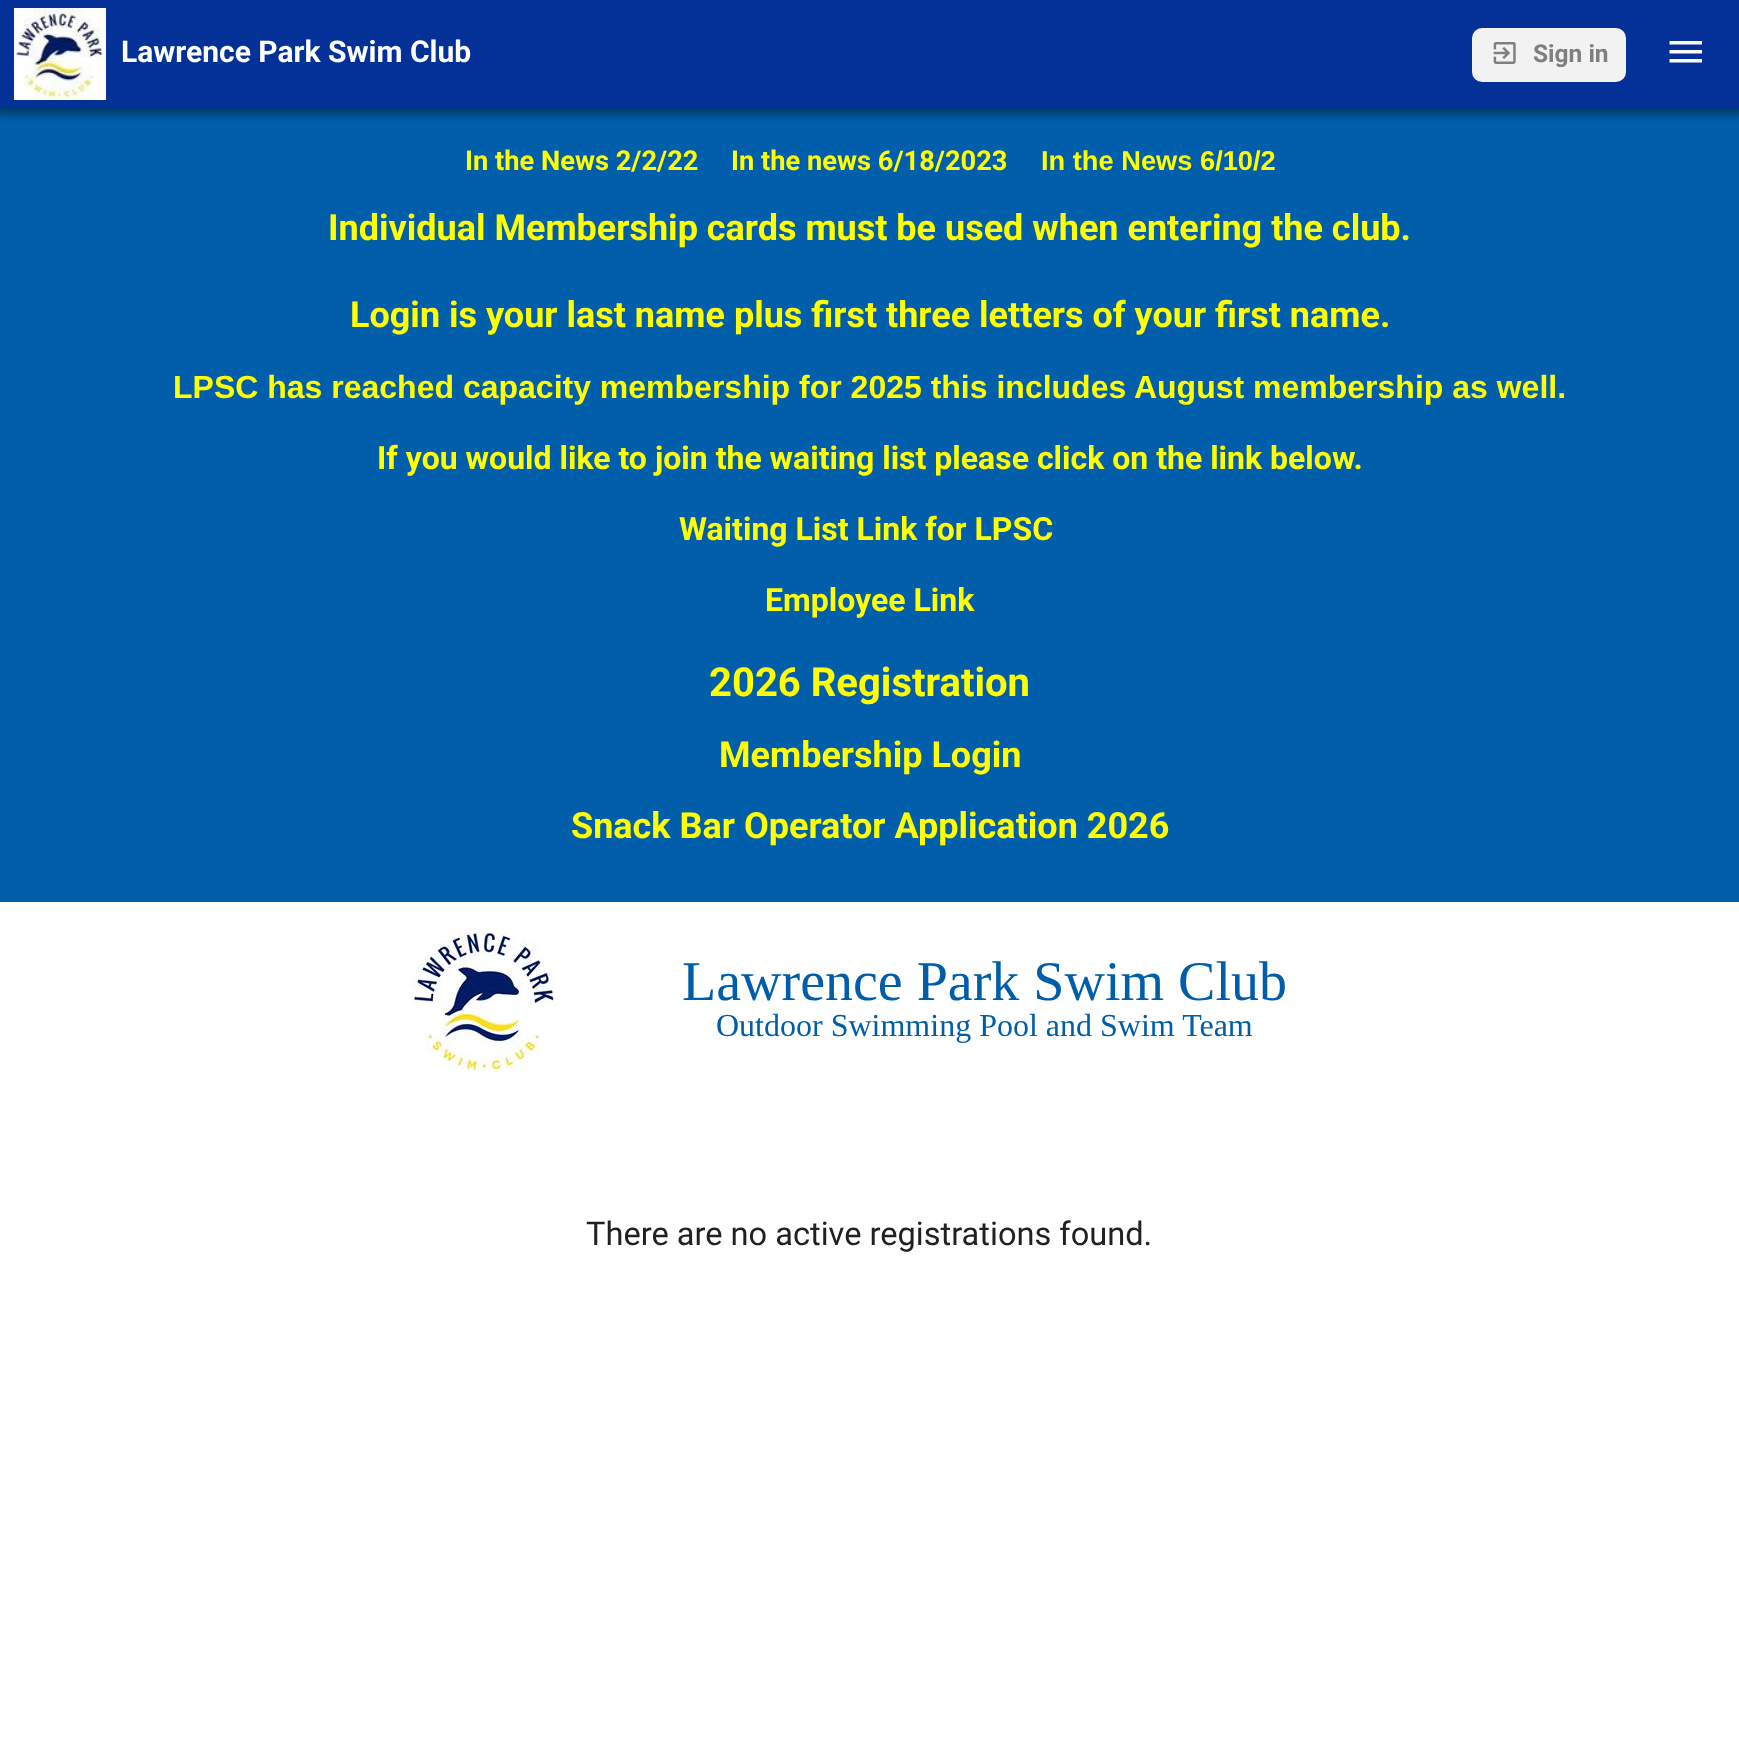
<!DOCTYPE html>
<meta charset="utf-8">
<style>body { margin: 0 } canvas { display: block }</style>
<canvas id="canvas" width="1739" height="1755"></canvas>
<script type="module">
  const canvas = document.getElementById("canvas");
  const g = canvas.getContext("2d");
  g.miterLimit = 4;
  g.fontKerning = "normal";
  function drawText(s, x, y, [font, color]) {
    g.font = font;
    g.fillStyle = color;
    g.fillText(s, x, y);
  }
  function fillBox(x, y, w, h, color) {
    g.fillStyle = color;
    g.fillRect(x, y, w, h);
  }
  function fillRounded(x, y, w, h, r, color) {
    g.fillStyle = color;
    g.beginPath();
    g.roundRect(x, y, w, h, r);
    g.fill();
  }
  async function drawPicture(src, x, y, w, h) {
    const img = new Image();
    img.src = src;
    await img.decode();
    g.drawImage(img, x, y, w, h);
  }

  const s1 = ["bold 30px Roboto", "#FFFFFF"];
  const s2 = ["bold 24.5px Roboto", "#7F7F7F"];
  const s3 = ["bold 27.25px Roboto", "#FFFF00"];
  const s4 = ["bold 27.25px Liberation Sans", "#FFFF00"];
  const s5 = ["bold 36px Roboto", "#FFFF00"];
  const s6 = ["bold 32px Liberation Sans", "#FFFF00"];
  const s7 = ["bold 32px Roboto", "#FFFF00"];
  const s8 = ["bold 40px Roboto", "#FFFF00"];
  const s9 = ["56px Liberation Serif", "#005DAA"];
  const s10 = ["32px Liberation Serif", "#005DAA"];
  const s11 = ["32.6px Roboto", "#212121"];

  fillBox(0, 0, 1739, 1755, "#FFFFFF");
  fillBox(0, 108, 1739, 794, "#005EAB");
  g.fillStyle = "rgba(0, 0, 0, 0.4)";
  g.filter = "blur(5px)";
  g.beginPath();
  g.rect(-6, -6, 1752, 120);
  g.fill();
  g.filter = "none";
  fillBox(0, 0, 1739, 108, "#043197");
  await drawPicture("pic1.png", 14, 8, 92, 92);
  drawText("Lawrence Park Swim Club", 121, 62, s1);
  fillRounded(1472, 28, 154, 54, 10, "#F2F2F2");
  await drawPicture("pic2.png", 1493, 42, 23, 22);
  drawText("Sign in", 1533, 62, s2);
  g.fillStyle = "#FFFFFF";
  g.beginPath();
  g.moveTo(1669.5, 41);
  g.lineTo(1702, 41);
  g.lineTo(1702, 44.5);
  g.lineTo(1669.5, 44.5);
  g.closePath();
  g.moveTo(1669.5, 50);
  g.lineTo(1702, 50);
  g.lineTo(1702, 53.5);
  g.lineTo(1669.5, 53.5);
  g.closePath();
  g.moveTo(1669.5, 59);
  g.lineTo(1702, 59);
  g.lineTo(1702, 62.5);
  g.lineTo(1669.5, 62.5);
  g.closePath();
  g.fill();
  drawText("In the News 2/2/22", 465, 170, s3);
  drawText("In the news 6/18/2023", 731, 170, s3);
  drawText("In the News 6/10/2", 1041, 170, s4);
  drawText("Individual Membership cards must be used when entering the club.", 328, 240, s5);
  drawText("Login is your last name plus first three letters of your first name.", 350, 327, s5);
  drawText("LPSC has reached capacity membership for 2025 this includes August membership as well.", 173, 398, s6);
  drawText("If you would like to join the waiting list please click on the link below.", 377, 469, s7);
  drawText("Waiting List Link for LPSC", 679, 540, s7);
  drawText("Employee Link", 765, 611, s7);
  drawText("2026 Registration", 709, 696, s8);
  drawText("Membership Login", 719, 767, s5);
  drawText("Snack Bar Operator Application 2026", 571, 838, s5);
  await drawPicture("pic3.png", 410, 924, 145, 150);
  drawText("Lawrence Park Swim Club", 682, 1000, s9);
  drawText("Outdoor Swimming Pool and Swim Team", 716, 1036, s10);
  drawText("There are no active registrations found.", 586, 1245, s11);
</script>
